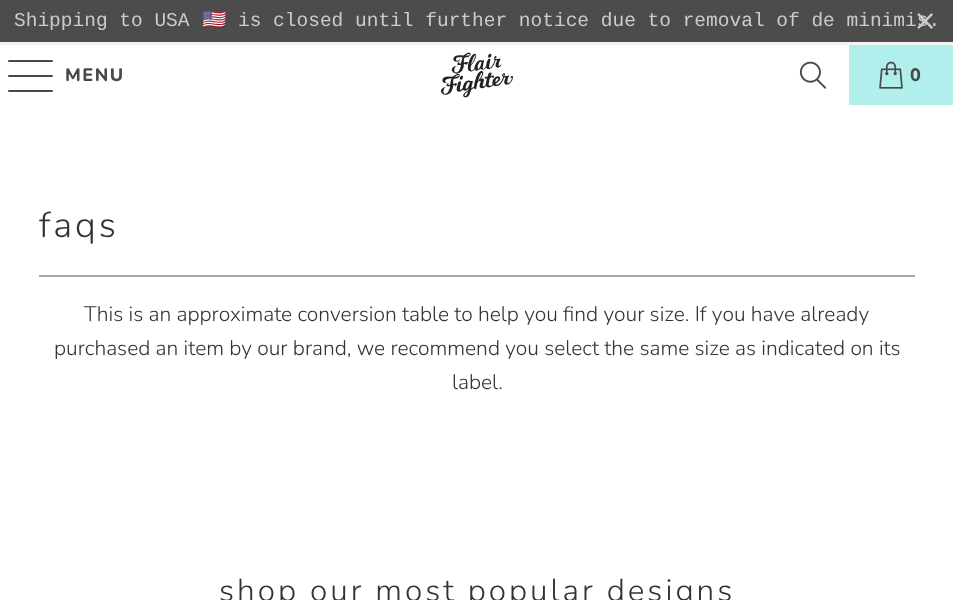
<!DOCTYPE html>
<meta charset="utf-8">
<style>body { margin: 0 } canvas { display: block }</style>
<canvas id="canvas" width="953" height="600"></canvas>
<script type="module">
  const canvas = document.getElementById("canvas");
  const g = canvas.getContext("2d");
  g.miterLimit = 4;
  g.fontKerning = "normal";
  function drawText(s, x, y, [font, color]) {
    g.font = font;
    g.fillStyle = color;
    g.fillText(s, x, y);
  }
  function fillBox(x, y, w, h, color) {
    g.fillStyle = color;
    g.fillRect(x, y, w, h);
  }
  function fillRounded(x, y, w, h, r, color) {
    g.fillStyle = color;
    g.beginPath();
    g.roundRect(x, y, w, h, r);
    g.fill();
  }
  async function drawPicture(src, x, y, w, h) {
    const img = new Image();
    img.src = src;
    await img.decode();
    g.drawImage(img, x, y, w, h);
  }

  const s1 = ["19.5px Liberation Mono", "#CCCCCC"];
  const s2 = ["19.5px Noto Color Emoji", "#CCCCCC"];
  const s3 = ["800 18px Nunito", "#494949"];
  const s4 = ["300 36px Nunito", "#333333"];
  const s5 = ["300 21px Nunito", "#333333"];
  const s6 = ["300 31.5px Nunito", "#333333"];

  fillBox(0, 0, 953, 600, "#FFFFFF");
  fillBox(0, 0, 953, 42, "#4C4C4C");
  drawText("Shipping to USA", 14, 26, s1);
  drawText("🇺🇸", 202, 26, s2);
  drawText("is closed until further notice due to removal of de minimis.", 238, 26, s1);
  await drawPicture("pic1.png", 917, 13, 16, 16);
  fillBox(0, 42, 953, 3, "#F2F2F2");
  fillRounded(8, 60, 45, 2, 1, "#494949");
  fillRounded(8, 75, 45, 2, 1, "#494949");
  fillRounded(8, 90, 45, 2, 1, "#494949");
  g.letterSpacing = "1.5px";
  drawText("MENU", 65, 81, s3);
  await drawPicture("pic2.png", 440, 52, 73, 46);
  await drawPicture("pic3.png", 799, 61, 28, 28);
  fillBox(849, 45, 104, 60, "#B0EFEC");
  await drawPicture("pic4.png", 879, 61, 24, 28);
  drawText("0", 910, 81, s3);
  g.letterSpacing = "3px";
  drawText("faqs", 39, 237, s4);
  fillBox(39, 275, 876, 2, "#AAAAAA");
  g.letterSpacing = "0px";
  drawText("This is an approximate conversion table to help you find your size. If you have already", 84, 321, s5);
  drawText("purchased an item by our brand, we recommend you select the same size as indicated on its", 54, 355, s5);
  drawText("label.", 452, 389, s5);
  g.letterSpacing = "3px";
  drawText("shop our most popular designs", 219, 601, s6);
</script>
